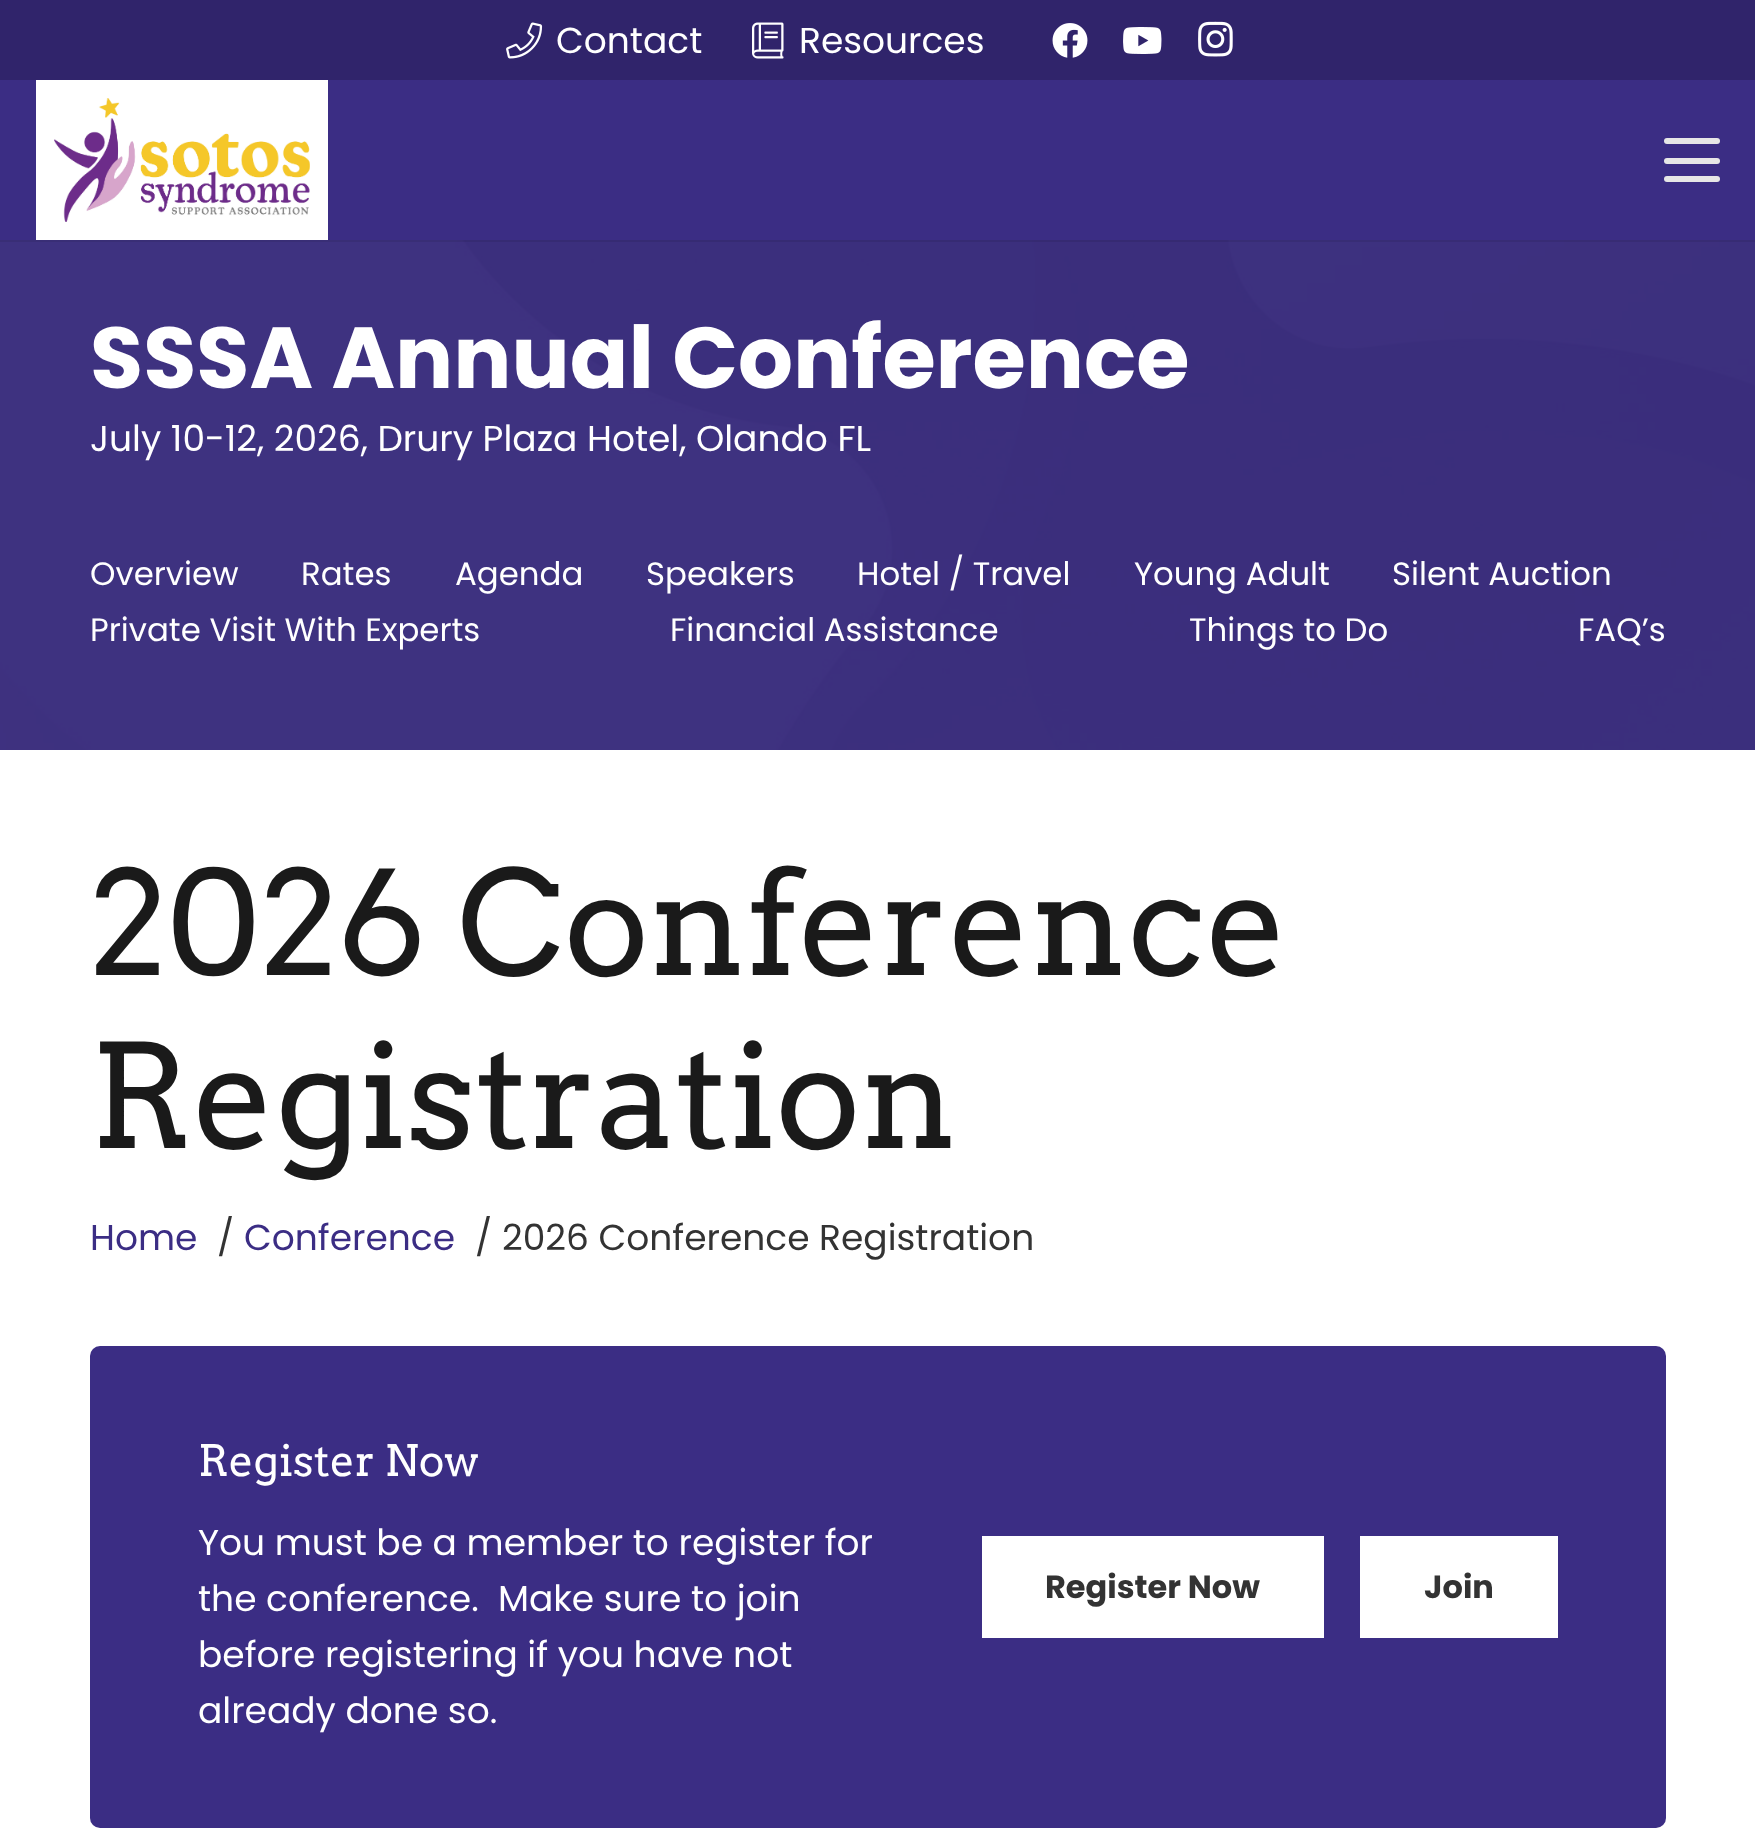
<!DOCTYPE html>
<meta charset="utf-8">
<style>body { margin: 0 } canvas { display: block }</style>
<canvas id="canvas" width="1755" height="1832"></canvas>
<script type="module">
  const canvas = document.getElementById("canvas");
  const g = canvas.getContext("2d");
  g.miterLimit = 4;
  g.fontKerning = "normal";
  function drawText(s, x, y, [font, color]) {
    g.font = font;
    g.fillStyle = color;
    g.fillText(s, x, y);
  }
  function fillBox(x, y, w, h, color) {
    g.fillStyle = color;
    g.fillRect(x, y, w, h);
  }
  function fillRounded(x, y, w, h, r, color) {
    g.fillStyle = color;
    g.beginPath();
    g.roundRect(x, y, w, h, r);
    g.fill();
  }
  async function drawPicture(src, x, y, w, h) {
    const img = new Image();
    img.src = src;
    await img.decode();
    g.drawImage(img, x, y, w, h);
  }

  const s1 = ["36px Poppins", "#FFFFFF"];
  const s2 = ["bold 86.4px Poppins", "#FFFFFF"];
  const s3 = ["32.4px Poppins", "#FFFFFF"];
  const s4 = ["144px Arvo", "#1A1A1A"];
  const s5 = ["36px Poppins", "#3B2D84"];
  const s6 = ["36px Poppins", "#333333"];
  const s7 = ["43.25px Arvo", "#FFFFFF"];
  const s8 = ["bold 32px Poppins", "#333333"];

  fillBox(0, 0, 1755, 1832, "#FFFFFF");
  fillBox(0, 0, 1755, 80, "#30246B");
  await drawPicture("pic1.png", 506, 22, 37, 37);
  drawText("Contact", 556, 53, s1);
  await drawPicture("pic2.png", 752, 22, 32, 37);
  drawText("Resources", 799, 53, s1);
  await drawPicture("pic3.png", 1052, 23, 36, 35);
  await drawPicture("pic4.png", 1123, 27, 39, 27);
  await drawPicture("pic5.png", 1198, 21, 35, 36);
  await drawPicture("pic7.png", 0, 240, 1755, 510);
  fillBox(0, 240, 1755, 2, "rgba(0, 0, 0, 0.08)");
  fillBox(0, 80, 1755, 160, "#3B2D84");
  fillBox(36, 80, 292, 160, "#FFFFFF");
  await drawPicture("pic6.png", 54, 98, 256, 124);
  fillRounded(1664, 158, 56, 6, 3, "#E6E6E6");
  fillRounded(1664, 138, 56, 6, 3, "#E6E6E6");
  fillRounded(1664, 176, 56, 6, 3, "#E6E6E6");
  drawText("SSSA Annual Conference", 90, 388, s2);
  drawText("July 10-12, 2026, Drury Plaza Hotel, Olando FL", 90, 451, s1);
  drawText("Overview", 90, 585, s3);
  drawText("Rates", 301, 585, s3);
  drawText("Agenda", 455, 585, s3);
  drawText("Speakers", 646, 585, s3);
  drawText("Hotel / Travel", 857, 585, s3);
  drawText("Young Adult", 1134, 585, s3);
  drawText("Silent Auction", 1392, 585, s3);
  drawText("Private Visit With Experts", 90, 641, s3);
  drawText("Financial Assistance", 670, 641, s3);
  drawText("Things to Do", 1189, 641, s3);
  drawText("FAQ’s", 1578, 641, s3);
  drawText("2026 Conference", 90, 975, s4);
  drawText("Registration", 90, 1148, s4);
  drawText("Home", 90, 1250, s5);
  drawText("/", 217, 1250, s6);
  drawText("Conference", 244, 1250, s5);
  drawText("/", 475, 1250, s6);
  drawText("2026 Conference Registration", 502, 1250, s6);
  fillRounded(90, 1346, 1576, 482, 10, "#3B2D84");
  drawText("Register Now", 198, 1476, s7);
  drawText("You must be a member to register for", 198, 1555, s1);
  drawText("the conference.  Make sure to join", 198, 1611, s1);
  drawText("before registering if you have not", 198, 1667, s1);
  drawText("already done so.", 198, 1723, s1);
  fillBox(982, 1536, 342, 102, "#FFFFFF");
  drawText("Register Now", 1045, 1598, s8);
  fillBox(1360, 1536, 198, 102, "#FFFFFF");
  drawText("Join", 1424, 1598, s8);
</script>
